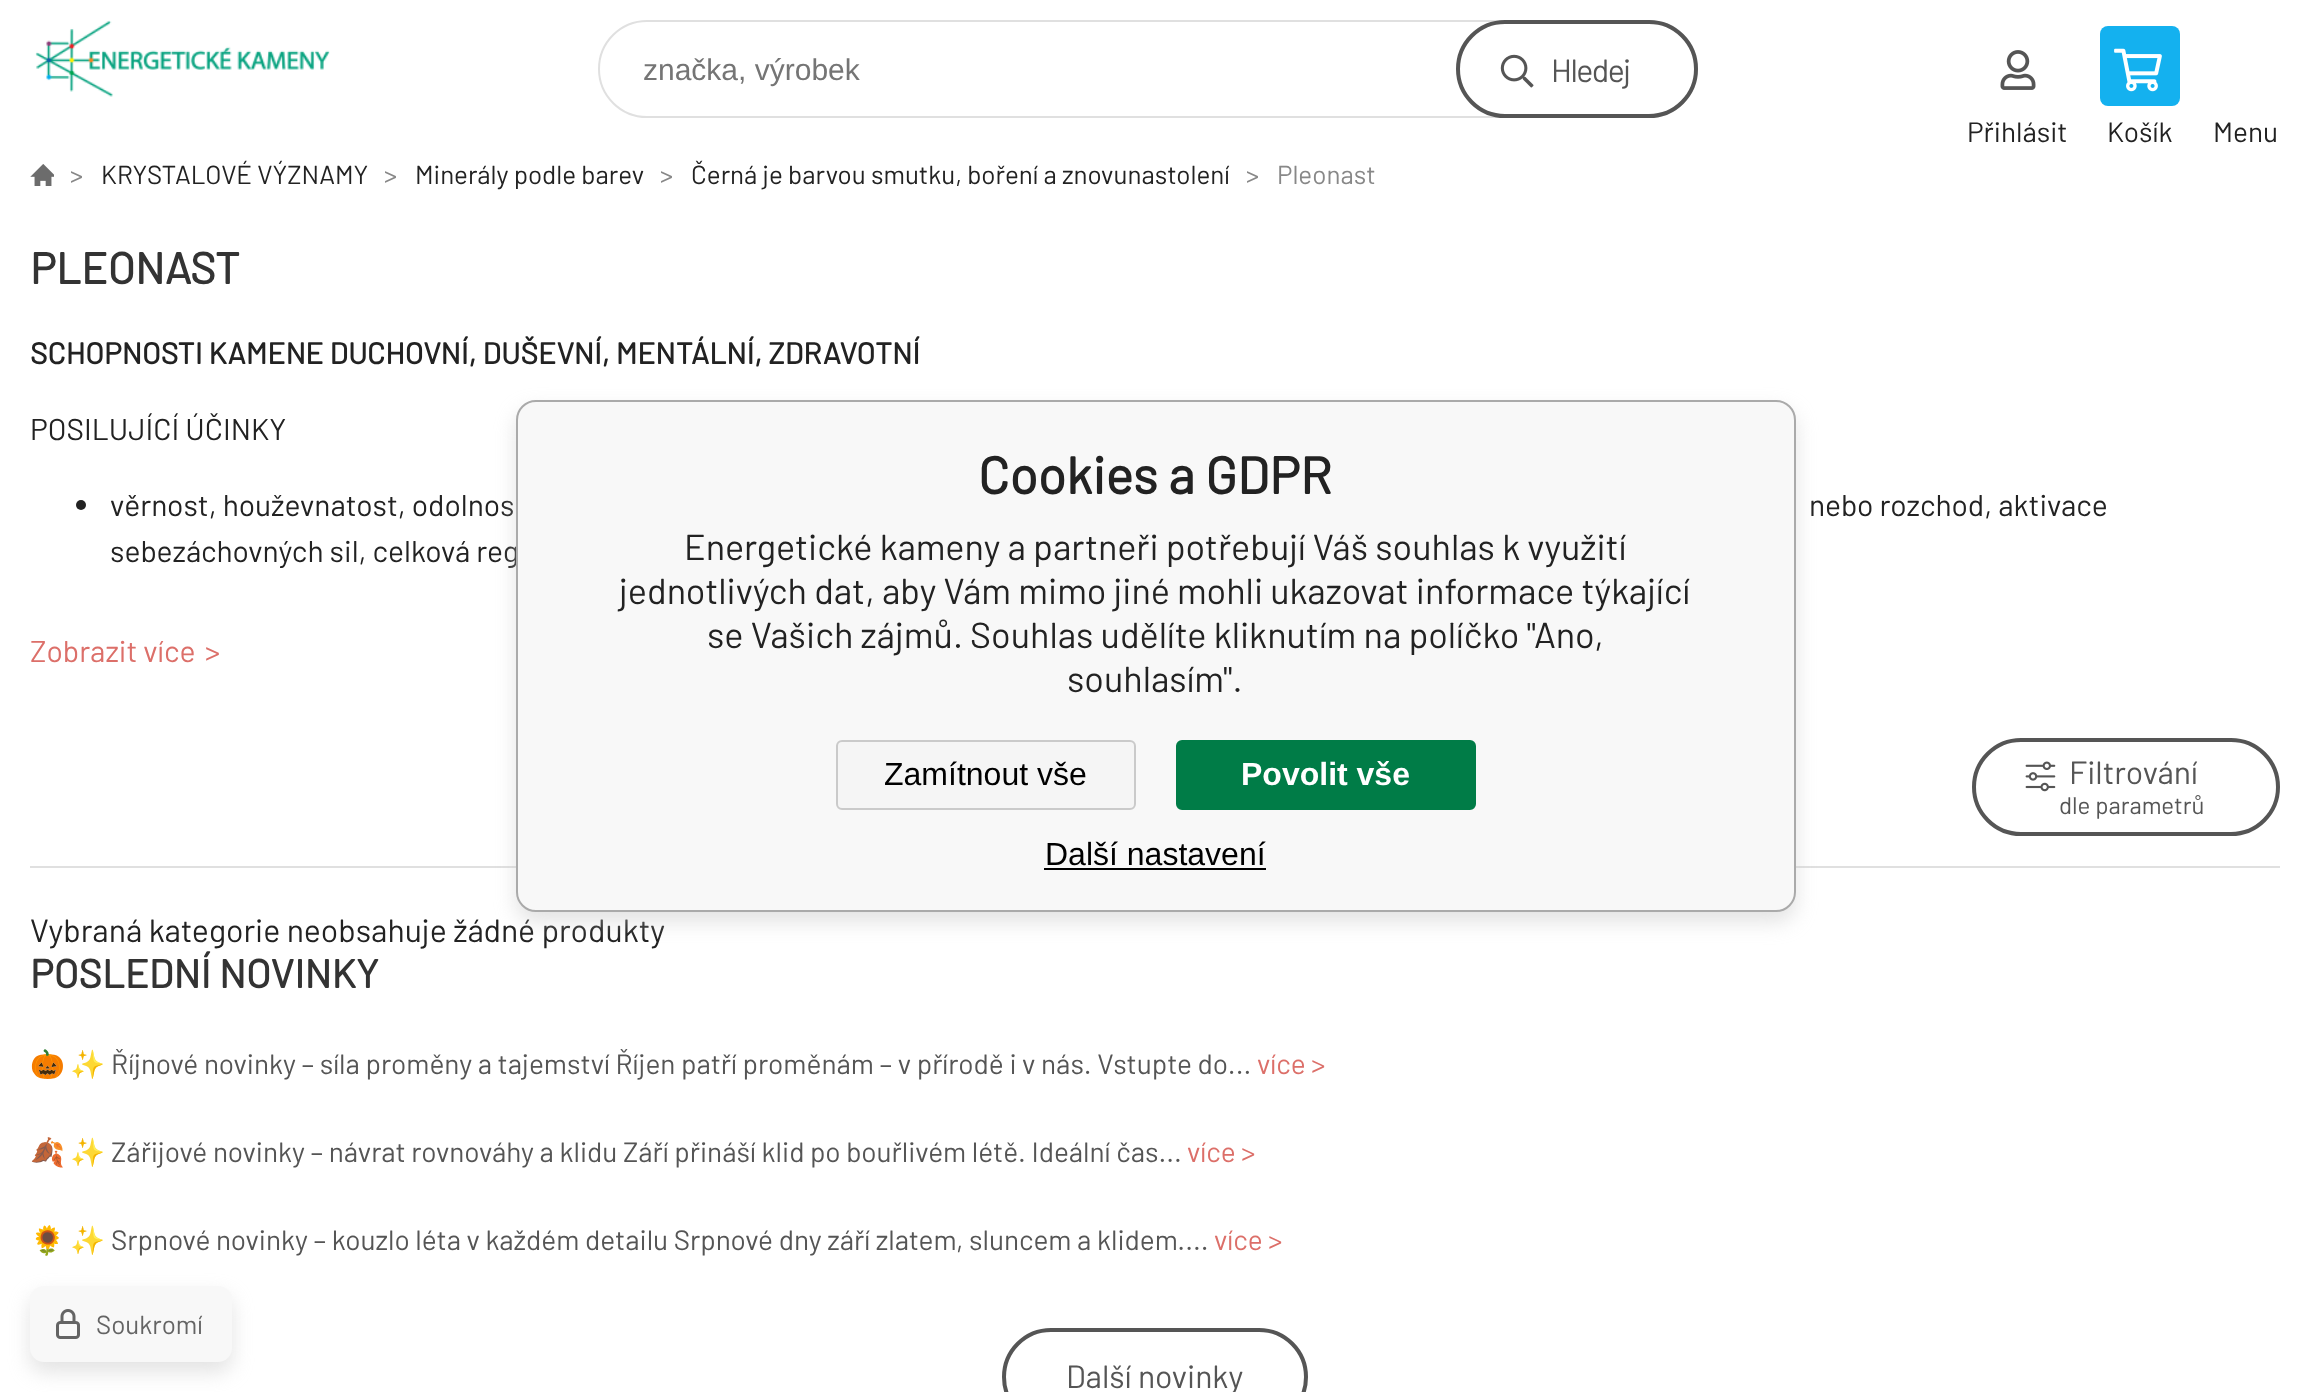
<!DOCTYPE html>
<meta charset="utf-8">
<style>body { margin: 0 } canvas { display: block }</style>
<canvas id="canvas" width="2309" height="1392"></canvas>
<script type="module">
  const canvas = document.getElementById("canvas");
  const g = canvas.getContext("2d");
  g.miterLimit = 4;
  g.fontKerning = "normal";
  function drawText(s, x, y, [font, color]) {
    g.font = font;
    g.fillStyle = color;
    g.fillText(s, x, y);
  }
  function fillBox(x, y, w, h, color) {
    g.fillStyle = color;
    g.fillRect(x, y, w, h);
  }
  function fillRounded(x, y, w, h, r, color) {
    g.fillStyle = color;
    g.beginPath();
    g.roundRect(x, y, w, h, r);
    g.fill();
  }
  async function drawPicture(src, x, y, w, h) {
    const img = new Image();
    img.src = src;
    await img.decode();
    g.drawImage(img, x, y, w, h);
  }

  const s1 = ["30px Liberation Sans", "#757575"];
  const s2 = ["32px Barlow", "#555555"];
  const s3 = ["28px Barlow", "#222222"];
  const s4 = ["26px Barlow", "#888888"];
  const s5 = ["26px Barlow", "#222222"];
  const s6 = ["bold 44px Barlow", "#333333"];
  const s7 = ["bold 30px Barlow", "#222222"];
  const s8 = ["30px Barlow", "#222222"];
  const s9 = ["30px Barlow", "#DC6F69"];
  const s10 = ["24px Barlow", "#555555"];
  const s11 = ["32px Barlow", "#222222"];
  const s12 = ["bold 40px Barlow", "#333333"];
  const s13 = ["28px Noto Color Emoji", "#555555"];
  const s14 = ["28px Barlow", "#555555"];
  const s15 = ["28px Barlow", "#DC6F69"];
  const s16 = ["bold 52px Barlow", "#222222"];
  const s17 = ["36px Barlow", "#222222"];
  const s18 = ["32px Liberation Sans", "#000000"];
  const s19 = ["bold 32px Liberation Sans", "#FFFFFF"];
  const s20 = ["26px Barlow", "#646464"];

  fillBox(0, 0, 2309, 1392, "#FFFFFF");
  await drawPicture("pic1.png", 35, 20, 295, 77);
  g.beginPath();
  g.roundRect(599, 21, 1098, 96, 48);
  g.strokeStyle = "#E0E0E0";
  g.lineWidth = 2;
  g.stroke();
  drawText("značka, výrobek", 643, 80, s1);
  await drawPicture("pic2.png", 1500, 54, 34, 34);
  g.beginPath();
  g.roundRect(1458, 22, 238, 94, 47);
  g.strokeStyle = "#555555";
  g.lineWidth = 4;
  g.stroke();
  g.letterSpacing = "-1.5px";
  drawText("Hledej", 1551, 82, s2);
  await drawPicture("pic3.png", 2000, 50, 36, 40);
  g.letterSpacing = "0px";
  drawText("Přihlásit", 1967, 142, s3);
  fillRounded(2100, 26, 80, 80, 8, "#14B1EF");
  await drawPicture("pic4.png", 2114, 48, 48, 44);
  drawText("Košík", 2107, 142, s3);
  drawText("Menu", 2213, 142, s3);
  await drawPicture("pic5.png", 30, 164, 24, 22);
  drawText(">", 70, 184, s4);
  drawText("KRYSTALOVÉ VÝZNAMY", 101, 184, s5);
  drawText(">", 384, 184, s4);
  drawText("Minerály podle barev", 415, 184, s5);
  drawText(">", 660, 184, s4);
  drawText("Černá je barvou smutku, boření a znovunastolení", 691, 184, s5);
  drawText(">", 1246, 184, s4);
  drawText("Pleonast", 1277, 184, s4);
  drawText("PLEONAST", 30, 284, s6);
  drawText("SCHOPNOSTI KAMENE DUCHOVNÍ, DUŠEVNÍ, MENTÁLNÍ, ZDRAVOTNÍ", 30, 364, s7);
  drawText("POSILUJÍCÍ ÚČINKY", 30, 440, s8);
  g.beginPath();
  g.arc(81, 505, 5, 0, Math.PI * 2);
  g.fill();
  drawText("věrnost, houževnatost, odolnos", 110, 516, s8);
  drawText("nebo rozchod, aktivace", 1809, 516, s8);
  drawText("sebezáchovných sil, celková reg", 110, 562, s8);
  drawText("Zobrazit více", 30, 662, s9);
  drawText(">", 205, 662, s9);
  fillBox(30, 866, 2250, 2, "#E0E0E0");
  await drawPicture("pic6.png", 2025, 761, 31, 31);
  g.beginPath();
  g.roundRect(1974, 740, 304, 94, 47);
  g.stroke();
  drawText("Filtrování", 2069, 784, s2);
  drawText("dle parametrů", 2059, 814, s10);
  drawText("Vybraná kategorie neobsahuje žádné produkty", 30, 942, s11);
  drawText("POSLEDNÍ NOVINKY", 30, 988, s12);
  drawText("🎃", 30, 1074, s13);
  drawText("✨", 70, 1074, s13);
  drawText("Říjnové novinky – síla proměny a tajemství Říjen patří proměnám – v přírodě i v nás. Vstupte do...", 111, 1074, s14);
  drawText("více >", 1257, 1074, s15);
  drawText("🍂", 30, 1162, s13);
  drawText("✨", 70, 1162, s13);
  drawText("Zářijové novinky – návrat rovnováhy a klidu Září přináší klid po bouřlivém létě. Ideální čas...", 111, 1162, s14);
  drawText("více >", 1187, 1162, s15);
  drawText("🌻", 30, 1250, s13);
  drawText("✨", 70, 1250, s13);
  drawText("Srpnové novinky – kouzlo léta v každém detailu Srpnové dny září zlatem, sluncem a klidem....", 111, 1250, s14);
  drawText("více >", 1214, 1250, s15);
  g.beginPath();
  g.roundRect(1004, 1330, 302, 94, 47);
  g.stroke();
  drawText("Další novinky", 1066, 1388, s2);
  g.fillStyle = "rgba(200, 200, 200, 0.5)";
  g.filter = "blur(10px)";
  g.beginPath();
  g.roundRect(516, 410, 1280, 512, 20);
  g.fill();
  g.filter = "none";
  g.fillStyle = "#F8F8F8";
  g.beginPath();
  g.roundRect(517, 401, 1278, 510, 19);
  g.fill();
  g.strokeStyle = "#AAAAAA";
  g.lineWidth = 2;
  g.stroke();
  drawText("Cookies a GDPR", 978, 494, s16);
  drawText("Energetické kameny a partneři potřebují Váš souhlas k využití", 684, 560, s17);
  drawText("jednotlivých dat, aby Vám mimo jiné mohli ukazovat informace týkající", 619, 604, s17);
  drawText("se Vašich zájmů. Souhlas udělíte kliknutím na políčko \"Ano,", 707, 648, s17);
  drawText("souhlasím\".", 1067, 692, s17);
  g.fillStyle = "#F5F5F5";
  g.beginPath();
  g.roundRect(837, 741, 298, 68, 5);
  g.fill();
  g.strokeStyle = "#CACACA";
  g.stroke();
  drawText("Zamítnout vše", 884, 785, s18);
  g.fillStyle = "#007C47";
  g.beginPath();
  g.roundRect(1177, 741, 298, 68, 5);
  g.fill();
  g.strokeStyle = "#007C47";
  g.stroke();
  drawText("Povolit vše", 1241, 785, s19);
  drawText("Další nastavení", 1045, 865, s18);
  fillBox(1044, 868, 222, 2, "#000000");
  g.fillStyle = "rgba(200, 200, 200, 0.5)";
  g.filter = "blur(10px)";
  g.beginPath();
  g.roundRect(30, 1296, 202, 76, 14);
  g.fill();
  g.filter = "none";
  fillRounded(30, 1286, 202, 76, 14, "#F8F8F8");
  await drawPicture("pic7.png", 56, 1309, 24, 30);
  drawText("Soukromí", 96, 1334, s20);
</script>
